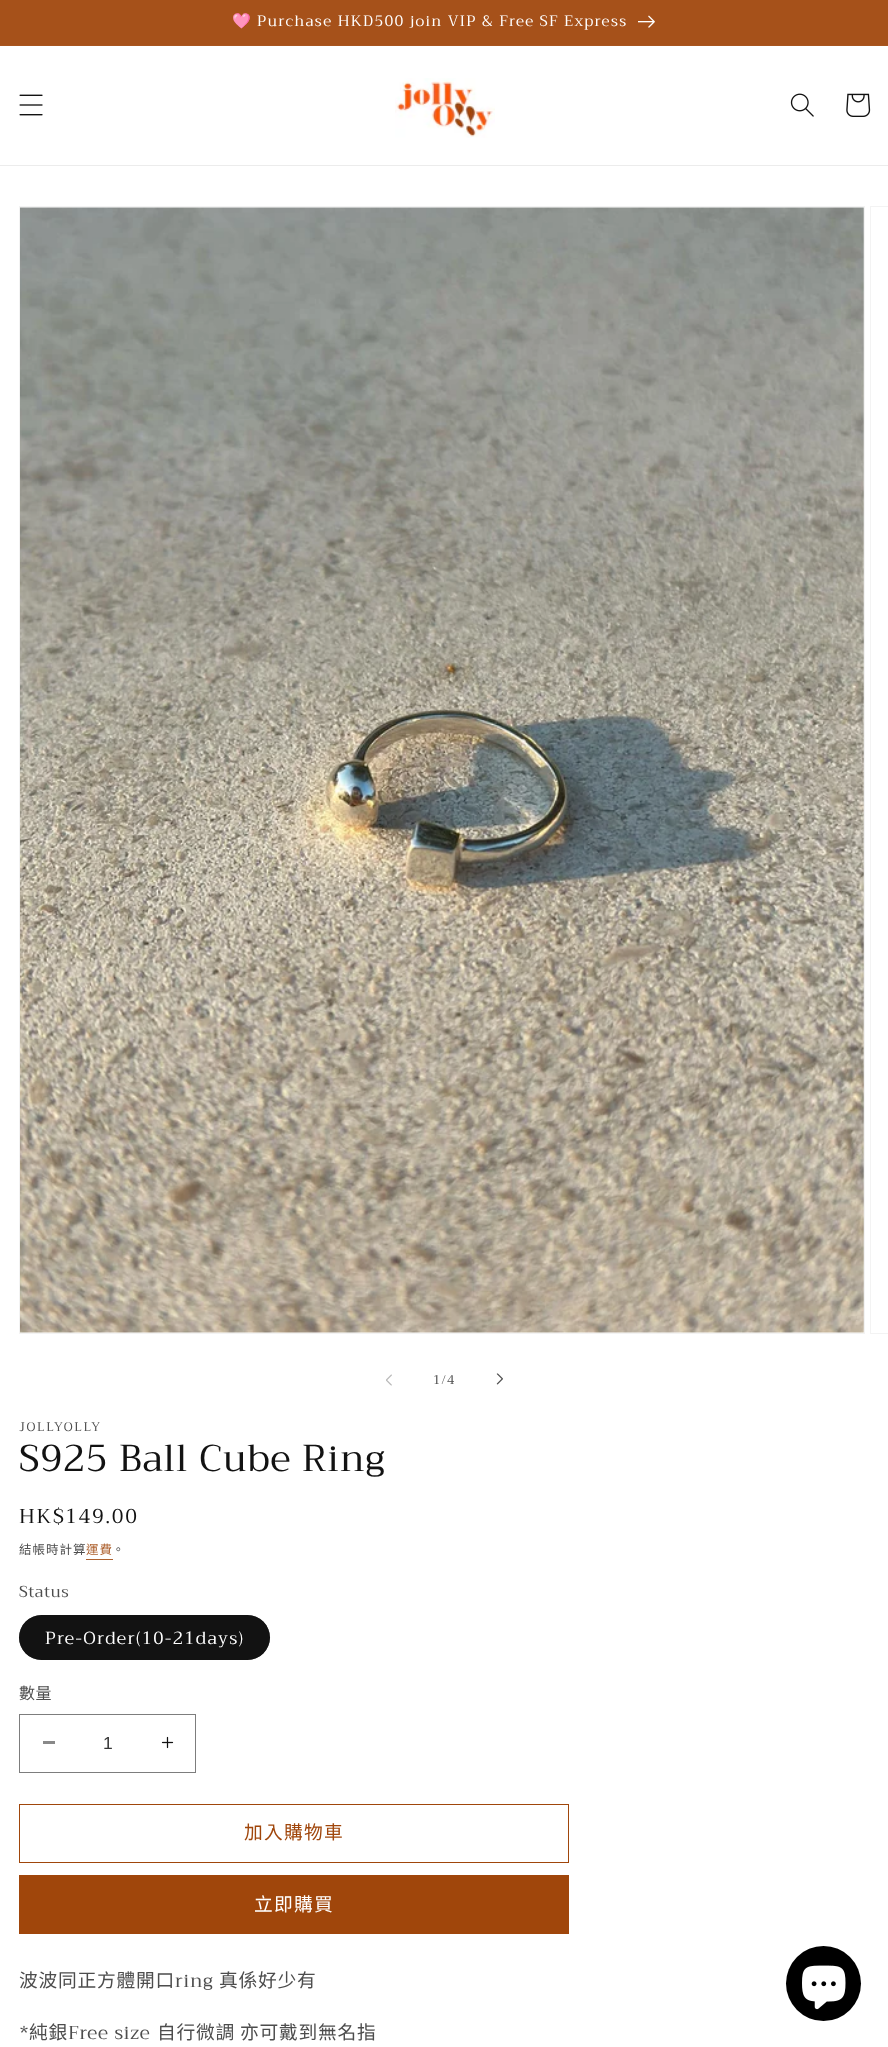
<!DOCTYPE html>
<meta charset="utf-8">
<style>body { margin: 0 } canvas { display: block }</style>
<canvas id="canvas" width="888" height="2047"></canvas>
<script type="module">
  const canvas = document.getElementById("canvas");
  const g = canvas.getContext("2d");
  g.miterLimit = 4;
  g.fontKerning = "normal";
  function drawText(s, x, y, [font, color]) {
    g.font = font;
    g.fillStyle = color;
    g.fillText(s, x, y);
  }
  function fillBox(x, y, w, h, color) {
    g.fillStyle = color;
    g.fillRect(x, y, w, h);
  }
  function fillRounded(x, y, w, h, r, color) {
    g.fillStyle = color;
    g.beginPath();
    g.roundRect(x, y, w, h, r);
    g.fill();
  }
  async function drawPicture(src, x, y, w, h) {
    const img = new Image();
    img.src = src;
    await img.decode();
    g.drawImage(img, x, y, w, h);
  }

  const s1 = ["15px Noto Color Emoji", "#FFFFFF"];
  const s2 = ["15px Trirong", "#FFFFFF"];
  const s3 = ["12.5px Trirong", "#4D4D4D"];
  const s4 = ["37.5px Trirong", "#121212"];
  const s5 = ["20px Trirong", "#121212"];
  const s6 = ["12.5px Noto Sans CJK TC", "#4D4D4D"];
  const s7 = ["12.5px Noto Sans CJK TC", "#AE6230"];
  const s8 = ["16px Trirong", "#4D4D4D"];
  const s9 = ["17.5px Trirong", "#FFFFFF"];
  const s10 = ["16px Noto Sans CJK TC", "#4D4D4D"];
  const s11 = ["17.5px Liberation Sans", "#363636"];
  const s12 = ["18.75px Noto Sans CJK TC", "#A0460B"];
  const s13 = ["18.75px Noto Sans CJK TC", "#FFFFFF"];
  const s14 = ["18.75px Noto Sans CJK TC", "#4D4D4D"];
  const s15 = ["18.75px Trirong", "#4D4D4D"];

  fillBox(0, 0, 888, 2047, "#FFFFFF");
  fillBox(0, 45, 888, 1, "#A8551F");
  fillBox(0, 0, 888, 45, "#A6511A");
  g.letterSpacing = "1.25px";
  drawText("🩷", 232, 26, s1);
  drawText("Purchase HKD500 join VIP & Free SF Express", 257, 26, s2);
  await drawPicture("pic1.png", 638, 15, 17, 13);
  fillBox(0, 165, 888, 1, "#ECECEC");
  await drawPicture("pic2.png", 19, 94, 24, 22);
  await drawPicture("pic3.png", 395, 78, 100, 60);
  await drawPicture("pic4.png", 790, 93, 24, 24);
  await drawPicture("pic5.png", 846, 93, 25, 24);
  g.strokeStyle = "#F3F3F3";
  g.strokeRect(19.5, 206.5, 845, 1127);
  await drawPicture("pic6.png", 20, 207, 844, 1126);
  g.strokeRect(870.5, 206.5, 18, 1127);
  await drawPicture("pic7.png", 386, 1374, 6, 12);
  g.letterSpacing = "1px";
  drawText("1/4", 433, 1384, s3);
  await drawPicture("pic8.png", 496, 1373, 7, 12);
  g.letterSpacing = "1.6px";
  drawText("JOLLYOLLY", 19, 1431, s3);
  g.letterSpacing = "0.75px";
  drawText("S925 Ball Cube Ring", 19, 1471, s4);
  g.letterSpacing = "1.6px";
  drawText("HK$149.00", 19, 1523, s5);
  g.letterSpacing = "1px";
  drawText("結帳時計算", 19, 1554, s6);
  drawText("運費", 86, 1554, s7);
  fillBox(86, 1559, 27, 1, "#AE6230");
  drawText("。", 112, 1554, s6);
  g.letterSpacing = "0.5px";
  drawText("Status", 19, 1597, s8);
  fillRounded(19, 1615, 251, 45, 22.5, "#121212");
  g.beginPath();
  g.roundRect(19.5, 1615.5, 250, 44, 22);
  g.strokeStyle = "rgba(18, 18, 18, 0.55)";
  g.stroke();
  g.letterSpacing = "1.25px";
  drawText("Pre-Order(10-21days)", 45, 1644, s9);
  g.letterSpacing = "0.5px";
  drawText("數量", 19, 1699, s10);
  fillBox(43, 1741, 12, 3, "#898989");
  await drawPicture("pic9.png", 161, 1736, 13, 13);
  g.strokeStyle = "#7D7D7D";
  g.strokeRect(19.5, 1714.5, 176, 58);
  g.letterSpacing = "0px";
  drawText("1", 103, 1749, s11);
  g.strokeStyle = "#A0460B";
  g.strokeRect(19.5, 1804.5, 549, 58);
  g.letterSpacing = "1.25px";
  drawText("加入購物車", 244, 1839, s12);
  fillBox(19, 1875, 550, 59, "#A0460B");
  drawText("立即購買", 254, 1911, s13);
  g.letterSpacing = "0.75px";
  drawText("波波同正方體開口", 19, 1987, s14);
  drawText("ring", 175, 1987, s15);
  drawText("真係好少有", 219, 1987, s14);
  drawText("*", 19, 2039, s15);
  drawText("純銀", 29, 2039, s14);
  drawText("Free size", 68, 2039, s15);
  drawText("自行微調", 157, 2039, s14);
  drawText("亦可戴到無名指", 240, 2039, s14);
  g.fillStyle = "#000000";
  g.beginPath();
  g.arc(823.5, 1983.5, 37.5, 0, Math.PI * 2);
  g.fill();
  await drawPicture("pic10.png", 802, 1965, 44, 45);
</script>
